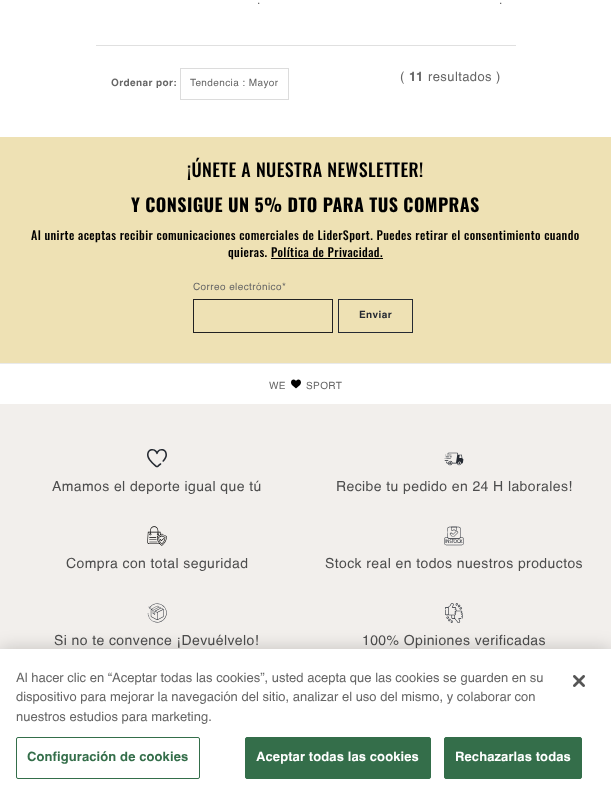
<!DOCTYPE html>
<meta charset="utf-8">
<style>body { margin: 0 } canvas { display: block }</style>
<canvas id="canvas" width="611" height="795"></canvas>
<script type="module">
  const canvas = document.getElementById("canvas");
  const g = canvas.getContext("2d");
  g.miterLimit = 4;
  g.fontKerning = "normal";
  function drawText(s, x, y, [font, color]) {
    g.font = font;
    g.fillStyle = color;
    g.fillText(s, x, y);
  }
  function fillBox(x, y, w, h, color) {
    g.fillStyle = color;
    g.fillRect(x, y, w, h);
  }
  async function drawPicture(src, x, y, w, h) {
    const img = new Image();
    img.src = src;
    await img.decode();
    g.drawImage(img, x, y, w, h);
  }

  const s1 = ["12px Helvetica", "#666666"];
  const s2 = ["italic bold 10px Helvetica", "#666666"];
  const s3 = ["10px Helvetica", "#666666"];
  const s4 = ["13px Helvetica", "#666666"];
  const s5 = ["italic bold 13px Helvetica", "#666666"];
  const s6 = ["500 18px Oswald", "#000000"];
  const s7 = ["bold 18px Oswald", "#000000"];
  const s8 = ["500 12px Oswald", "#000000"];
  const s9 = ["italic bold 10px Helvetica", "#252A32"];
  const s10 = ["14px Helvetica", "#4D4D4D"];
  const s11 = ["italic bold 13px Helvetica", "#346E4A"];
  const s12 = ["italic bold 13px Helvetica", "#FFFFFF"];

  fillBox(0, 0, 611, 795, "#FFFFFF");
  g.letterSpacing = "0.4px";
  drawText(".", 257, 4, s1);
  drawText(".", 499, 4, s1);
  fillBox(96, 45, 420, 1, "#E0E0E0");
  drawText("Ordenar por:", 111, 86, s2);
  g.strokeStyle = "#DCDCDC";
  g.strokeRect(180.5, 68.5, 108, 31);
  drawText("Tendencia : Mayor", 190, 86, s3);
  drawText("(", 400, 81, s4);
  drawText("11", 409, 81, s5);
  drawText("resultados )", 428, 81, s4);
  fillBox(0, 137, 611, 226, "#EEE1B4");
  drawText("¡ÚNETE A NUESTRA NEWSLETTER!", 187, 177, s6);
  drawText("Y CONSIGUE UN 5% DTO PARA TUS COMPRAS", 131, 212, s7);
  drawText("Al unirte aceptas recibir comunicaciones comerciales de LiderSport. Puedes retirar el consentimiento cuando", 31, 240, s8);
  drawText("quieras. Política de Privacidad.", 228, 257, s8);
  fillBox(271, 258, 112, 1, "#000000");
  drawText("Correo electrónico*", 193, 290, s3);
  g.strokeStyle = "#212121";
  g.strokeRect(193.5, 299.5, 139, 33);
  g.strokeStyle = "#252A32";
  g.strokeRect(338.5, 299.5, 74, 33);
  drawText("Enviar", 359, 318, s9);
  fillBox(0, 363, 611, 1, "#E9EAEB");
  drawText("WE", 269, 389, s3);
  await drawPicture("pic1.png", 291, 379, 10, 10);
  drawText("SPORT", 306, 389, s3);
  fillBox(0, 404, 611, 245, "#F2EFEC");
  await drawPicture("pic2.png", 147, 449, 20, 19);
  drawText("Amamos el deporte igual que tú", 52, 491, s10);
  await drawPicture("pic3.png", 444, 452, 20, 14);
  drawText("Recibe tu pedido en 24 H laborales!", 336, 491, s10);
  await drawPicture("pic4.png", 147, 526, 20, 20);
  drawText("Compra con total seguridad", 66, 568, s10);
  await drawPicture("pic5.png", 444, 526, 20, 20);
  drawText("Stock real en todos nuestros productos", 325, 568, s10);
  await drawPicture("pic6.png", 147, 603, 20, 20);
  drawText("Si no te convence ¡Devuélvelo!", 54, 645, s10);
  await drawPicture("pic7.png", 445, 603, 18, 20);
  drawText("100% Opiniones verificadas", 362, 645, s10);
  g.fillStyle = "rgba(0, 0, 0, 0.2)";
  g.filter = "blur(9px)";
  g.beginPath();
  g.rect(0, 649, 611, 146);
  g.fill();
  g.filter = "none";
  fillBox(0, 649, 611, 146, "#FFFFFF");
  g.letterSpacing = "0px";
  drawText("Al hacer clic en “Aceptar todas las cookies”, usted acepta que las cookies se guarden en su", 16, 682, s4);
  drawText("dispositivo para mejorar la navegación del sitio, analizar el uso del mismo, y colaborar con", 16, 701, s4);
  drawText("nuestros estudios para marketing.", 16, 721, s4);
  g.beginPath();
  g.roundRect(16.5, 737.5, 183, 41, 1.5);
  g.strokeStyle = "#346E4A";
  g.stroke();
  g.letterSpacing = "0.1px";
  drawText("Configuración de cookies", 27, 761, s11);
  g.beginPath();
  g.roundRect(245.5, 737.5, 185, 41, 1.5);
  g.fill();
  g.stroke();
  drawText("Aceptar todas las cookies", 256, 761, s12);
  g.fillStyle = "#346E4A";
  g.beginPath();
  g.roundRect(444.5, 737.5, 137, 41, 1.5);
  g.fill();
  g.stroke();
  drawText("Rechazarlas todas", 455, 761, s12);
  await drawPicture("pic8.png", 573, 675, 12, 12);
</script>
